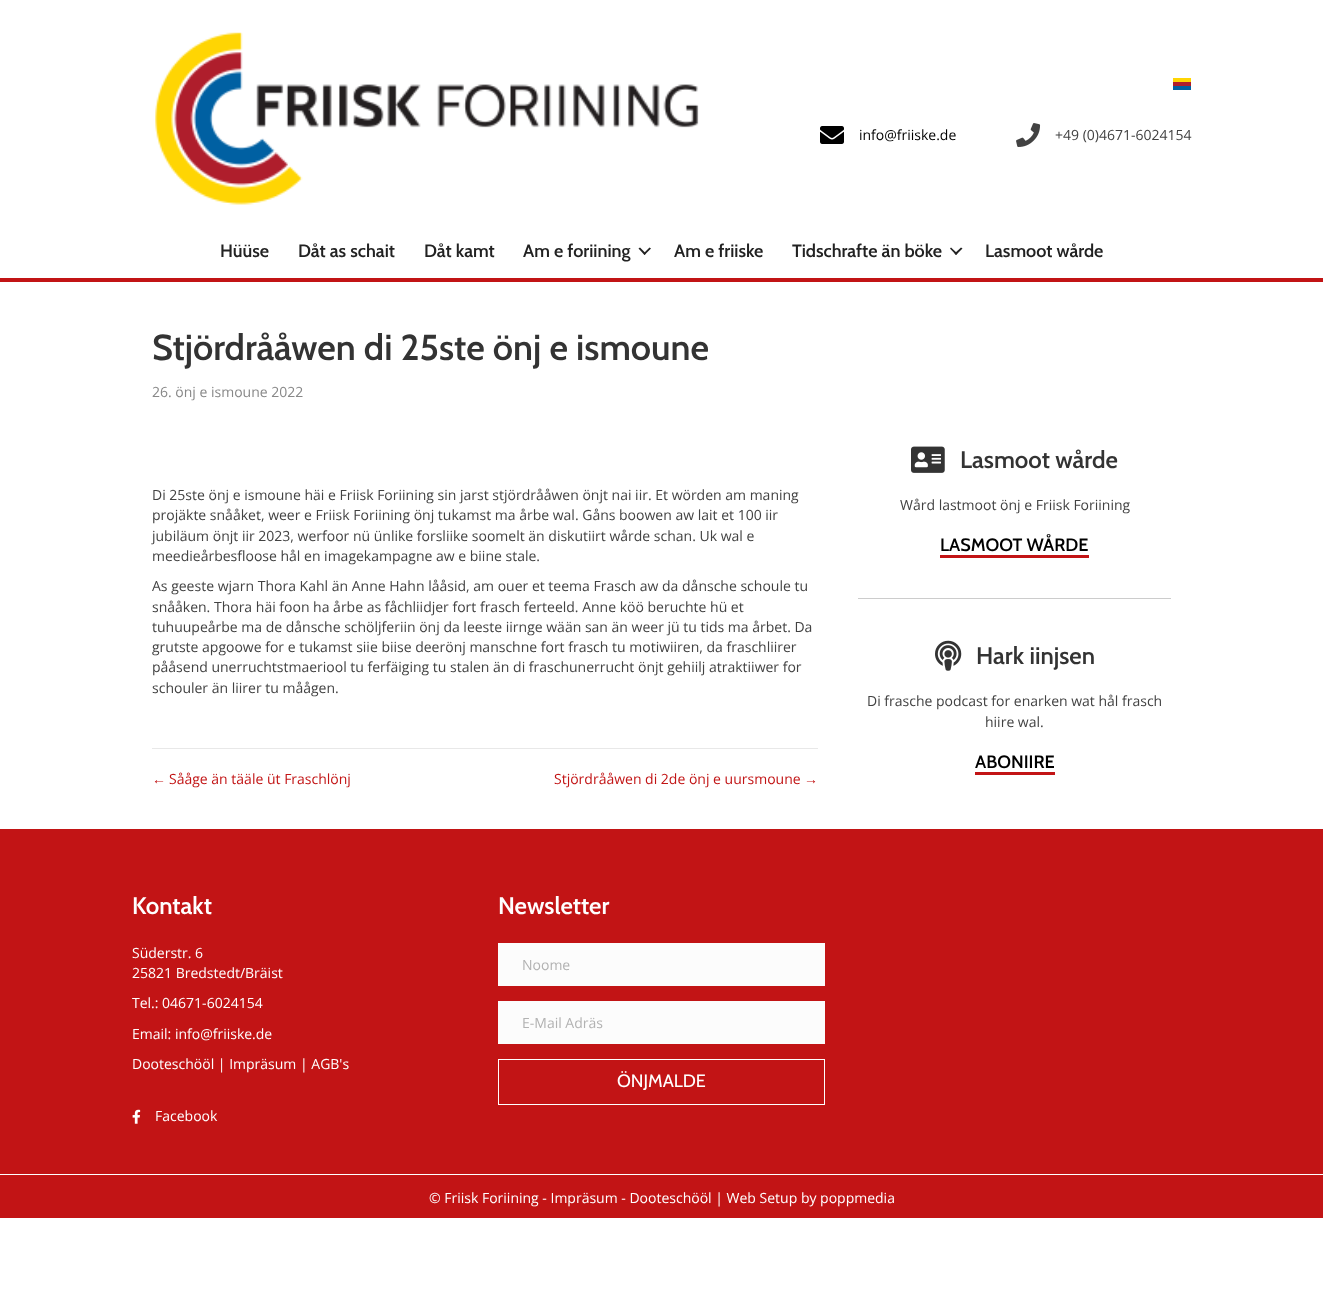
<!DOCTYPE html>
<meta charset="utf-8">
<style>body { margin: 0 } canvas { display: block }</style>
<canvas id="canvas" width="1323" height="1311"></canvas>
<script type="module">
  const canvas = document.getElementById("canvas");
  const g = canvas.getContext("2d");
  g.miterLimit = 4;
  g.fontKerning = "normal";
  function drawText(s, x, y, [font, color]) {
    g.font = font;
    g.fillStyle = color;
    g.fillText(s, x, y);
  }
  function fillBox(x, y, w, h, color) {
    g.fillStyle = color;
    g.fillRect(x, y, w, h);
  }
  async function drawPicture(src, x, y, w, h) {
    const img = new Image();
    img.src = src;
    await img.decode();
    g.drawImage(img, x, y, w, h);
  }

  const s1 = ["14px Open Sans", "#000000"];
  const s2 = ["14px Open Sans", "#424242"];
  const s3 = ["600 18px Cabin", "#222222"];
  const s4 = ["600 36px Cabin", "#333333"];
  const s5 = ["14px Open Sans", "#888888"];
  const s6 = ["14px Liberation Sans", "#C21415"];
  const s7 = ["14px Open Sans", "#C21415"];
  const s8 = ["600 24px Cabin", "#333333"];
  const s9 = ["600 18px Cabin", "#000000"];
  const s10 = ["600 24px Cabin", "#FFFFFF"];
  const s11 = ["14px Open Sans", "#FFFFFF"];
  const s12 = ["14px Open Sans", "#B2B2B2"];
  const s13 = ["18px Cabin", "#FFFFFF"];

  fillBox(0, 0, 1323, 1311, "#FFFFFF");
  await drawPicture("pic1.png", 155, 32, 544, 173);
  await drawPicture("pic2.png", 1173, 78, 18, 12);
  await drawPicture("pic3.png", 820, 126, 24, 18);
  drawText("info@friiske.de", 859, 140, s1);
  await drawPicture("pic4.png", 1016, 123, 25, 24);
  drawText("+49 (0)4671-6024154", 1055, 140, s2);
  fillBox(0, 278, 1323, 4, "#C21415");
  drawText("Hüüse", 220, 257, s3);
  drawText("Dåt as schait", 298, 257, s3);
  drawText("Dåt kamt", 424, 257, s3);
  drawText("Am e foriining", 523, 257, s3);
  g.beginPath();
  g.moveTo(649.5, 247.5);
  g.lineTo(651, 248.5);
  g.lineTo(644.5, 255);
  g.lineTo(643.5, 253.5);
  g.closePath();
  g.fill();
  g.beginPath();
  g.moveTo(640, 247.5);
  g.lineTo(646, 253.5);
  g.lineTo(644.5, 255);
  g.lineTo(638.5, 248.5);
  g.closePath();
  g.fill();
  drawText("Am e friiske", 674, 257, s3);
  drawText("Tidschrafte än böke", 792, 257, s3);
  g.beginPath();
  g.moveTo(961, 247.5);
  g.lineTo(962.5, 248.5);
  g.lineTo(956, 255);
  g.lineTo(954.5, 253.5);
  g.closePath();
  g.fill();
  g.beginPath();
  g.moveTo(951, 247.5);
  g.lineTo(957.5, 253.5);
  g.lineTo(956, 255);
  g.lineTo(950, 248.5);
  g.closePath();
  g.fill();
  drawText("Lasmoot wårde", 985, 257, s3);
  drawText("Stjördrååwen di 25ste önj e ismoune", 152, 360, s4);
  drawText("26. önj e ismoune 2022", 152, 397, s5);
  drawText("Di 25ste önj e ismoune häi e Friisk Foriining sin jarst stjördrååwen önjt nai iir. Et wörden am maning", 152, 500, s2);
  drawText("projäkte snååket, weer e Friisk Foriining önj tukamst ma årbe wal. Gåns boowen aw lait et 100 iir", 152, 520, s2);
  drawText("jubiläum önjt iir 2023, werfoor nü ünlike forsliike soomelt än diskutiirt wårde schan. Uk wal e", 152, 541, s2);
  drawText("meedieårbesfloose hål en imagekampagne aw e biine stale.", 152, 561, s2);
  drawText("As geeste wjarn Thora Kahl än Anne Hahn lååsid, am ouer et teema Frasch aw da dånsche schoule tu", 152, 591, s2);
  drawText("snååken. Thora häi foon ha årbe as fåchliidjer fort frasch ferteeld. Anne köö beruchte hü et", 152, 612, s2);
  drawText("tuhuupeårbe ma de dånsche schöljferiin önj da leeste iirnge wään san än weer jü tu tids ma årbet. Da", 152, 632, s2);
  drawText("grutste apgoowe for e tukamst siie biise deerönj manschne fort frasch tu motiwiiren, da fraschliirer", 152, 652, s2);
  drawText("pååsend unerruchtstmaeriool tu ferfäiging tu stalen än di fraschunerrucht önjt gehiilj atraktiiwer for", 152, 672, s2);
  drawText("schouler än liirer tu måågen.", 152, 693, s2);
  fillBox(152, 748, 666, 1, "#E8E8E8");
  drawText("←", 152, 784, s6);
  drawText("Sååge än tääle üt Fraschlönj", 169, 784, s7);
  drawText("Stjördrååwen di 2de önj e uursmoune", 554, 784, s7);
  drawText("→", 804, 784, s6);
  await drawPicture("pic5.png", 911, 446, 34, 27);
  drawText("Lasmoot wårde", 960, 468, s8);
  drawText("Wård lastmoot önj e Friisk Foriining", 900, 510, s2);
  fillBox(940, 555, 149, 3, "#C21415");
  drawText("LASMOOT WÅRDE", 940, 551, s9);
  fillBox(858, 598, 313, 1, "#CCCCCC");
  await drawPicture("pic6.png", 935, 640, 27, 31);
  drawText("Hark iinjsen", 976, 664, s8);
  drawText("Di frasche podcast for enarken wat hål frasch", 867, 706, s2);
  drawText("hiire wal.", 985, 727, s2);
  fillBox(975, 772, 80, 3, "#C21415");
  drawText("ABONIIRE", 975, 768, s9);
  fillBox(0, 829, 1323, 345, "#C21415");
  drawText("Kontakt", 132, 914, s10);
  drawText("Süderstr. 6", 132, 958, s11);
  drawText("25821 Bredstedt/Bräist", 132, 978, s11);
  drawText("Tel.: 04671-6024154", 132, 1008, s11);
  drawText("Email: info@friiske.de", 132, 1039, s11);
  drawText("Dooteschööl | Impräsum | AGB's", 132, 1069, s11);
  await drawPicture("pic7.png", 132, 1109, 9, 15);
  drawText("Facebook", 155, 1121, s11);
  drawText("Newsletter", 498, 914, s10);
  fillBox(498, 943, 327, 43, "#FCFCFC");
  drawText("Noome", 522, 970, s12);
  fillBox(498, 1001, 327, 43, "#FCFCFC");
  drawText("E-Mail Adräs", 522, 1028, s12);
  g.strokeStyle = "#FFFFFF";
  g.strokeRect(498.5, 1059.5, 326, 45);
  drawText("ÖNJMALDE", 617, 1087, s13);
  fillBox(0, 1175, 1323, 43, "#C21415");
  drawText("© Friisk Foriining - Impräsum - Dooteschööl | Web Setup by poppmedia", 429, 1203, s11);
</script>
